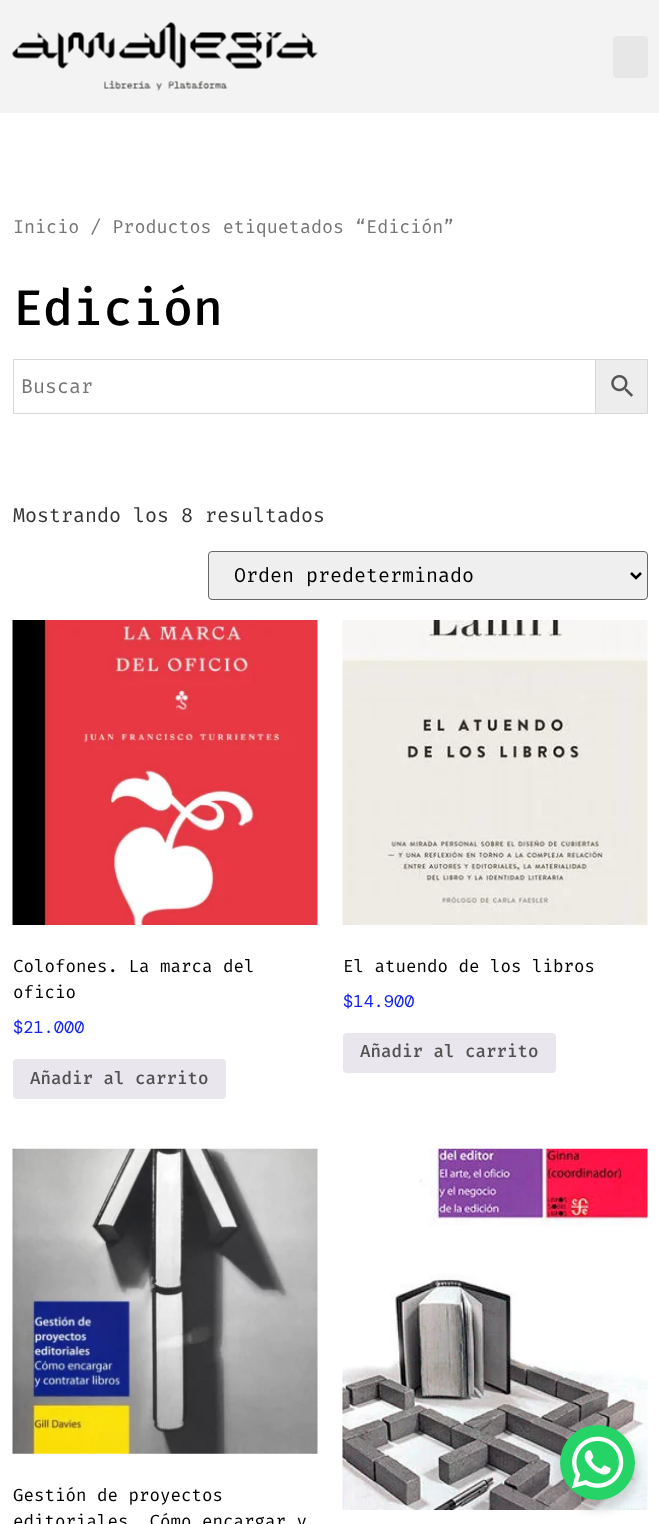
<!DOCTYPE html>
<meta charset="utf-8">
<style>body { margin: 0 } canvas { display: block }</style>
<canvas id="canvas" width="659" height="1524"></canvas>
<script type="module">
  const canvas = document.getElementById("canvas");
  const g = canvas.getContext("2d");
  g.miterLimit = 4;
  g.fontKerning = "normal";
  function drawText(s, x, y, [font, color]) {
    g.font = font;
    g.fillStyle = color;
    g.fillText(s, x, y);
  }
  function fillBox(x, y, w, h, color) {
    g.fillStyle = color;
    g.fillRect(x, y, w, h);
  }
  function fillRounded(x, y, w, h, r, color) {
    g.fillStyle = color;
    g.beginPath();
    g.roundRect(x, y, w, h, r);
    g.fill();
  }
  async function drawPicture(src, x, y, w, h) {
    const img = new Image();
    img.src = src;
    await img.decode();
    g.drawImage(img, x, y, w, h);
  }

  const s1 = ["18.4px Fira Mono", "#767676"];
  const s2 = ["500 50px Fira Mono", "#000000"];
  const s3 = ["20px Fira Mono", "#767676"];
  const s4 = ["20px Fira Mono", "#333333"];
  const s5 = ["20px Fira Mono", "#000000"];
  const s6 = ["17.5px Fira Mono", "#000000"];
  const s7 = ["17px DM Mono", "#1423F0"];
  const s8 = ["500 17.5px Fira Mono", "#515151"];

  fillBox(0, 0, 659, 1524, "#FFFFFF");
  fillBox(0, 0, 659, 113, "#F3F3F3");
  await drawPicture("pic1.png", 12, 22, 306, 69);
  fillRounded(613, 36, 35, 42, 4, "#E7E7E7");
  drawText("Inicio / Productos etiquetados “Edición”", 13, 233, s1);
  drawText("Edición", 13, 325, s2);
  g.fillStyle = "#EDEDED";
  g.beginPath();
  g.rect(595.5, 359.5, 52, 54);
  g.fill();
  g.strokeStyle = "#D8D8D8";
  g.stroke();
  g.strokeRect(13.5, 359.5, 582, 54);
  drawText("Buscar", 21, 393, s3);
  await drawPicture("pic2.png", 611, 375, 22, 22);
  drawText("Mostrando los 8 resultados", 13, 522, s4);
  g.fillStyle = "#EFEFEF";
  g.beginPath();
  g.roundRect(208.5, 551.5, 439, 48, 3.5);
  g.fill();
  g.strokeStyle = "#666666";
  g.stroke();
  g.beginPath();
  g.moveTo(631, 573);
  g.lineTo(636, 578);
  g.lineTo(641, 573);
  g.strokeStyle = "#000000";
  g.lineWidth = 2.5;
  g.stroke();
  drawText("Orden predeterminado", 234, 582, s5);
  await drawPicture("pic3.png", 12, 620, 306, 305);
  drawText("Colofones. La marca del", 13, 972, s6);
  drawText("oficio", 13, 998, s6);
  drawText("$21.000", 13, 1033, s7);
  fillRounded(13, 1059, 213, 40, 4, "#E9E6ED");
  drawText("Añadir al carrito", 30, 1084, s8);
  await drawPicture("pic4.png", 342, 620, 306, 305);
  drawText("El atuendo de los libros", 343, 972, s6);
  drawText("$14.900", 343, 1007, s7);
  fillRounded(343, 1033, 213, 40, 4, "#E9E6ED");
  drawText("Añadir al carrito", 360, 1057, s8);
  await drawPicture("pic5.png", 12, 1148, 306, 306);
  drawText("Gestión de proyectos", 13, 1501, s6);
  drawText("editoriales. Cómo encargar y", 13, 1527, s6);
  await drawPicture("pic6.png", 342, 1148, 306, 362);
  g.fillStyle = "rgba(0, 0, 0, 0.15)";
  g.filter = "blur(5px)";
  g.beginPath();
  g.roundRect(558, 1430, 80, 80, 40);
  g.fill();
  g.filter = "none";
  g.fillStyle = "#25D366";
  g.beginPath();
  g.arc(597.5, 1462.5, 37.5, 0, Math.PI * 2);
  g.fill();
  await drawPicture("pic7.png", 572, 1436, 52, 53);
</script>
